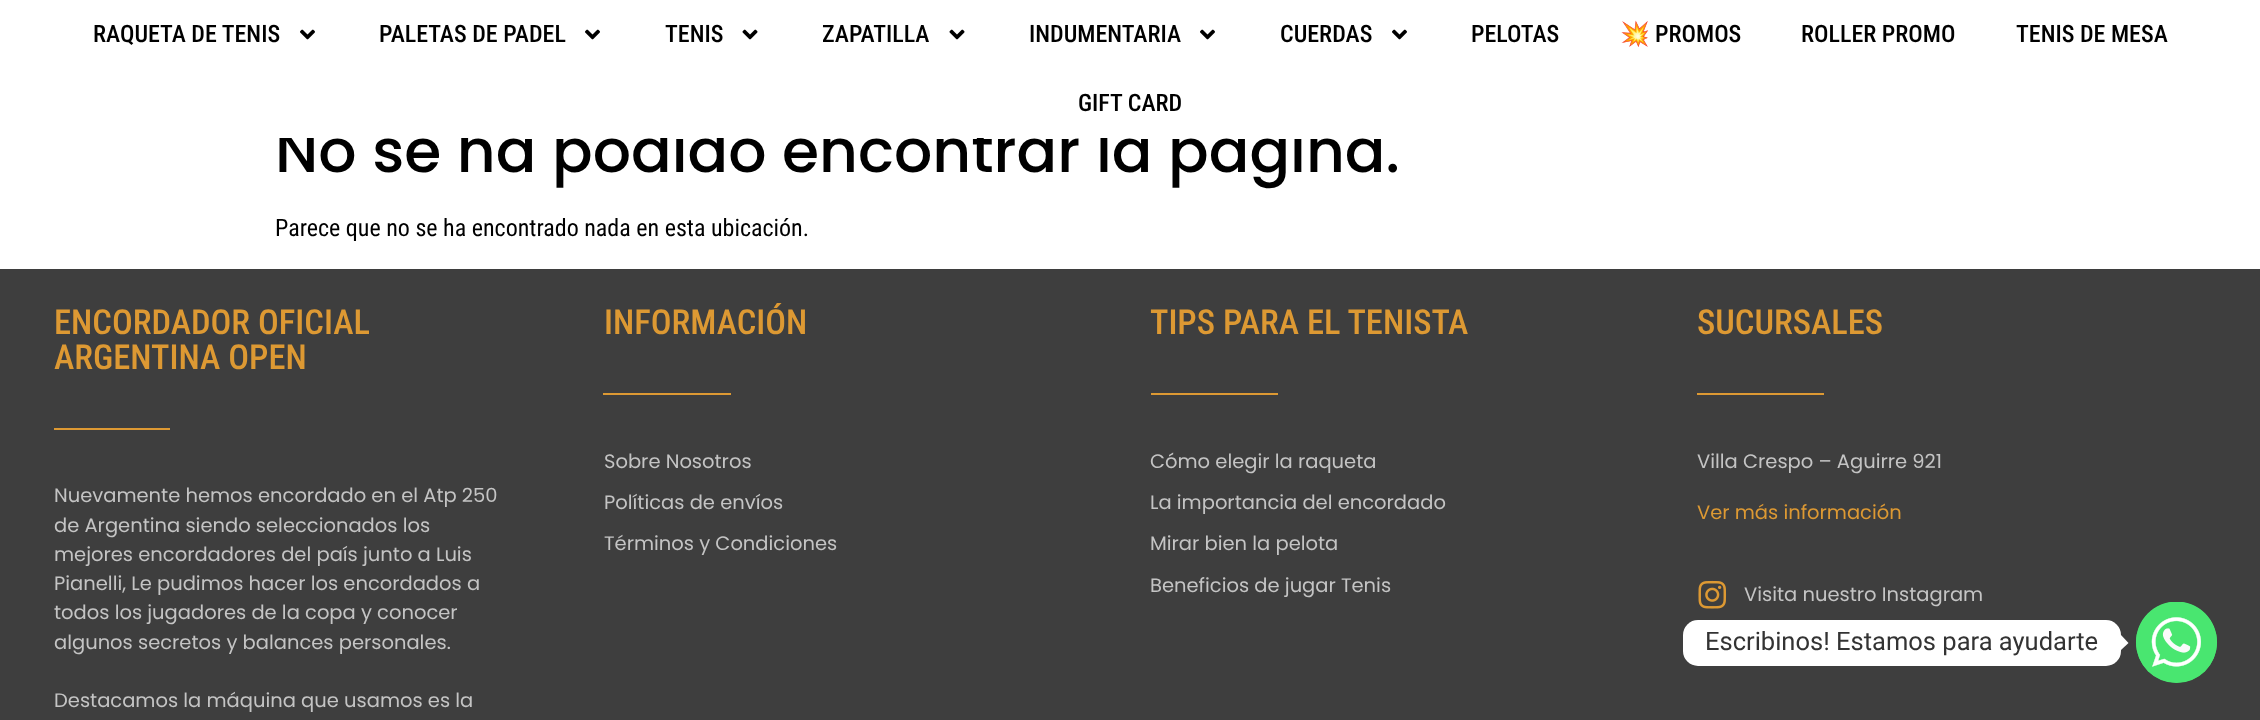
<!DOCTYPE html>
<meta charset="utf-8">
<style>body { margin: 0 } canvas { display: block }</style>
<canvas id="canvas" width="2260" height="720"></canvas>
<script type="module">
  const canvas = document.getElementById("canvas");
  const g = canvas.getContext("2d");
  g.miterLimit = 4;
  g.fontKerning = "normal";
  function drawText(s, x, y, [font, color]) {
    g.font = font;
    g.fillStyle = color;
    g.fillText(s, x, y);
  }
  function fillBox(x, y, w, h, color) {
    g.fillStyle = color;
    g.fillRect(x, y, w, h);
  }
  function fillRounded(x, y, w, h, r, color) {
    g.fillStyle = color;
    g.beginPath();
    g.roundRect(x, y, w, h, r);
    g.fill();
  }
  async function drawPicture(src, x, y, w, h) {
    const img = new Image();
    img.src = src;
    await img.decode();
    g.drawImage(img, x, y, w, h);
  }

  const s1 = ["500 60px Poppins", "#000000"];
  const s2 = ["500 24px Roboto Condensed", "#000000"];
  const s3 = ["24px Noto Color Emoji", "#000000"];
  const s4 = ["24px Roboto Condensed", "#000000"];
  const s5 = ["500 34.5px Roboto Condensed", "#DD9933"];
  const s6 = ["19.5px Poppins", "#C4C4C4"];
  const s7 = ["19.5px Poppins", "#DD9933"];
  const s8 = ["25.5px Roboto", "#333333"];

  fillBox(0, 0, 2260, 720, "#FFFFFF");
  drawText("No se ha podido encontrar la página.", 275, 172, s1);
  fillBox(279, 124, 1024, 14, "#FFFFFF");
  drawText("RAQUETA DE TENIS", 93, 42, s2);
  await drawPicture("pic1.png", 300, 29, 15, 11);
  drawText("PALETAS DE PADEL", 379, 42, s2);
  await drawPicture("pic1.png", 585, 29, 15, 11);
  drawText("TENIS", 665, 42, s2);
  await drawPicture("pic2.png", 742, 29, 16, 11);
  drawText("ZAPATILLA", 822, 42, s2);
  await drawPicture("pic2.png", 949, 29, 16, 11);
  drawText("INDUMENTARIA", 1029, 42, s2);
  await drawPicture("pic1.png", 1200, 29, 15, 11);
  drawText("CUERDAS", 1280, 42, s2);
  await drawPicture("pic1.png", 1392, 29, 15, 11);
  drawText("PELOTAS", 1471, 42, s2);
  drawText("💥", 1620, 42, s3);
  drawText("PROMOS", 1655, 42, s2);
  drawText("ROLLER PROMO", 1801, 42, s2);
  drawText("TENIS DE MESA", 2016, 42, s2);
  drawText("GIFT CARD", 1078, 111, s2);
  drawText("Parece que no se ha encontrado nada en esta ubicación.", 275, 236, s4);
  fillBox(0, 269, 2260, 451, "#3E3E3E");
  drawText("ENCORDADOR OFICIAL", 54, 334, s5);
  drawText("ARGENTINA OPEN", 54, 369, s5);
  fillBox(54, 428, 116, 2, "#DD9933");
  drawText("Nuevamente hemos encordado en el Atp 250", 54, 502, s6);
  drawText("de Argentina siendo seleccionados los", 54, 532, s6);
  drawText("mejores encordadores del país junto a Luis", 54, 561, s6);
  drawText("Pianelli, Le pudimos hacer los encordados a", 54, 590, s6);
  drawText("todos los jugadores de la copa y conocer", 54, 619, s6);
  drawText("algunos secretos y balances personales.", 54, 649, s6);
  drawText("Destacamos la máquina que usamos es la", 54, 707, s6);
  drawText("INFORMACIÓN", 604, 334, s5);
  fillBox(603, 393, 128, 2, "#DD9933");
  drawText("Sobre Nosotros", 604, 468, s6);
  drawText("Políticas de envíos", 604, 509, s6);
  drawText("Términos y Condiciones", 604, 550, s6);
  drawText("TIPS PARA EL TENISTA", 1150, 334, s5);
  fillBox(1151, 393, 127, 2, "#DD9933");
  drawText("Cómo elegir la raqueta", 1150, 468, s6);
  drawText("La importancia del encordado", 1150, 509, s6);
  drawText("Mirar bien la pelota", 1150, 550, s6);
  drawText("Beneficios de jugar Tenis", 1150, 592, s6);
  drawText("SUCURSALES", 1697, 334, s5);
  fillBox(1697, 393, 127, 2, "#DD9933");
  drawText("Villa Crespo – Aguirre 921", 1697, 468, s6);
  drawText("Ver más información", 1697, 519, s7);
  await drawPicture("pic3.png", 1698, 580, 29, 29);
  drawText("Visita nuestro Instagram", 1744, 601, s6);
  fillRounded(1683, 620, 438, 46, 15, "#FFFFFF");
  drawText("Escribinos! Estamos para ayudarte", 1705, 650, s8);
  g.fillStyle = "#FFFFFF";
  g.beginPath();
  g.moveTo(2121, 650);
  g.lineTo(2121, 635);
  g.lineTo(2128.5, 643);
  g.closePath();
  g.fill();
  g.fillStyle = "#49E670";
  g.beginPath();
  g.arc(2176.5, 642.5, 40.5, 0, Math.PI * 2);
  g.fill();
  await drawPicture("pic4.png", 2136, 602, 81, 81);
</script>
